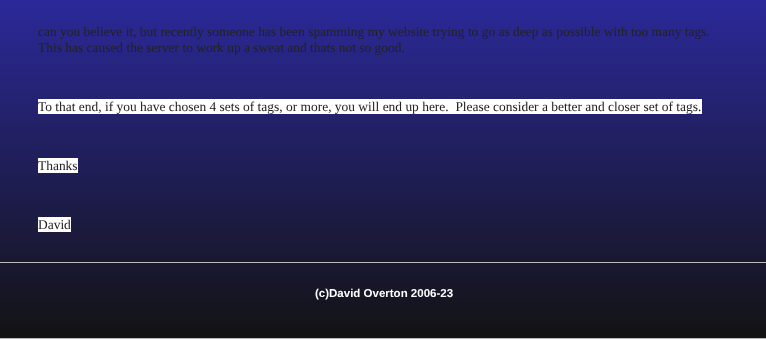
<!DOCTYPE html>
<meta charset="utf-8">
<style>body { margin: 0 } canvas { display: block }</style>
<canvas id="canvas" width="766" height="339"></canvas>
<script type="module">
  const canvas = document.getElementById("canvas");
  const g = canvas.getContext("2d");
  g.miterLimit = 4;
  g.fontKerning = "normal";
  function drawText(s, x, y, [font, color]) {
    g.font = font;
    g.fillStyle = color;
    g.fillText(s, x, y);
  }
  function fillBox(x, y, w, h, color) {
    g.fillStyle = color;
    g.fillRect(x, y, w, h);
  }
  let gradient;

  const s1 = ["13.45px Liberation Serif", "#222222"];
  const s2 = ["bold 11.5px Liberation Sans", "#FFFFFF"];

  fillBox(0, 0, 766, 339, "#FFFFFF");
  gradient = g.createLinearGradient(383, 0, 383, 339);
  gradient.addColorStop(0, "#2B2999");
  gradient.addColorStop(1, "#131313");
  g.fillStyle = gradient;
  g.fillRect(0, 0, 766, 338);
  drawText("can you believe it, but recently someone has been spamming my website trying to go as deep as possible with too many tags.", 38, 36, s1);
  drawText("This has caused the server to work up a sweat and thats not so good.", 38, 52, s1);
  fillBox(38, 99, 664, 15, "#FFFFFF");
  drawText("To that end, if you have chosen 4 sets of tags, or more, you will end up here.  Please consider a better and closer set of tags.", 38, 111, s1);
  fillBox(38, 158, 40, 15, "#FFFFFF");
  drawText("Thanks", 38, 170, s1);
  fillBox(38, 217, 33, 15, "#FFFFFF");
  drawText("David", 38, 229, s1);
  fillBox(0, 262, 766, 1, "#BBBBBB");
  fillBox(0, 338, 766, 1, "#BBBBBB");
  drawText("(c)David Overton 2006-23", 315, 297, s2);
</script>
